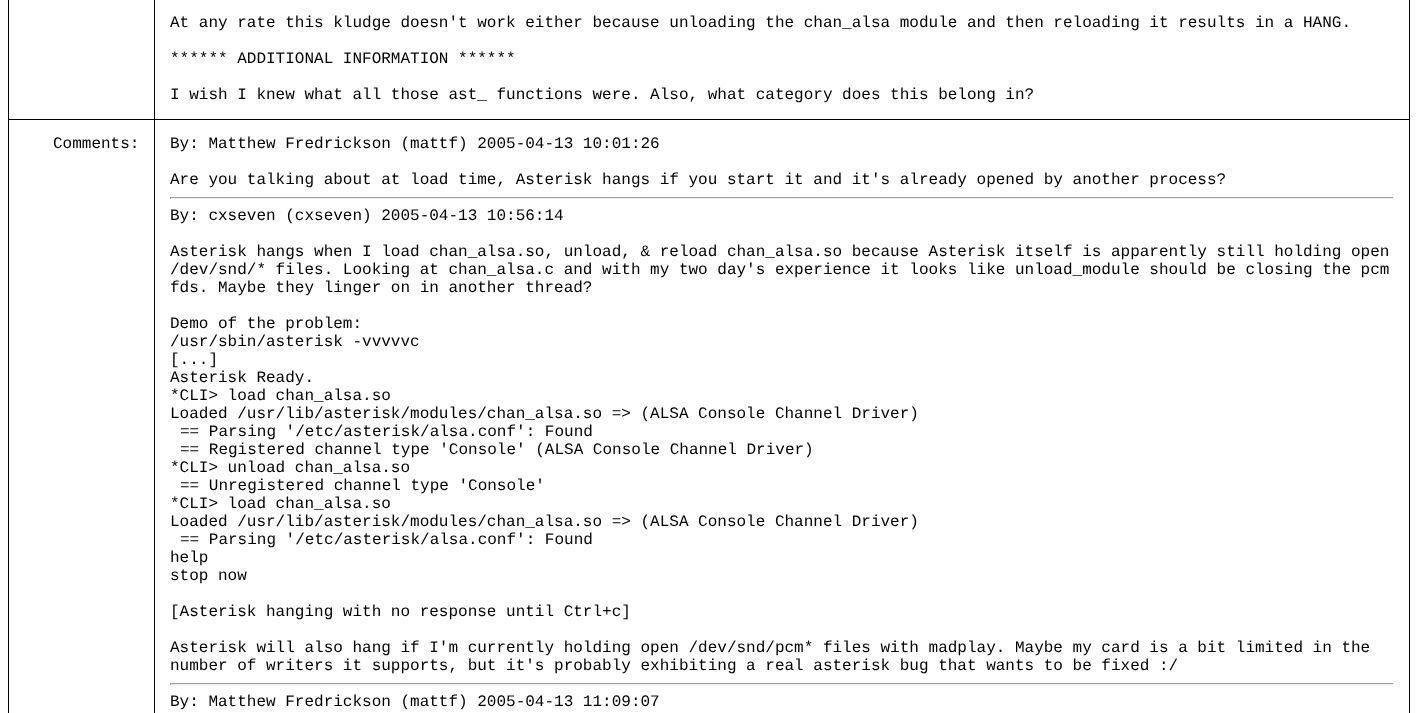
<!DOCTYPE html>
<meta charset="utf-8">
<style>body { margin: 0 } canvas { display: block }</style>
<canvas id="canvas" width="1418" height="713"></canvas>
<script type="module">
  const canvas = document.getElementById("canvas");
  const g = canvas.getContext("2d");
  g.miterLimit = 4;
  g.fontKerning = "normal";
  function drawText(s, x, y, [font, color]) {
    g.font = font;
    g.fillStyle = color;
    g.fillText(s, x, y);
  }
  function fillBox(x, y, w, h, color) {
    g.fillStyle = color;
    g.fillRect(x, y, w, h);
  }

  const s1 = ["16px Liberation Mono", "#000000"];

  fillBox(0, 0, 1418, 713, "#FFFFFF");
  fillBox(154, 119, 1256, 1, "#000000");
  fillBox(154, 119, 1, 594, "#000000");
  fillBox(8, 119, 147, 1, "#000000");
  fillBox(154, 0, 1, 120, "#000000");
  drawText("At any rate this kludge doesn't work either because unloading the chan_alsa module and then reloading it results in a HANG.", 170, 27, s1);
  drawText("****** ADDITIONAL INFORMATION ******", 170, 63, s1);
  drawText("I wish I knew what all those ast_ functions were. Also, what category does this belong in?", 170, 99, s1);
  fillBox(8, 0, 1, 713, "#000000");
  drawText("Comments:", 53, 148, s1);
  fillBox(1409, 0, 1, 713, "#000000");
  drawText("By: Matthew Fredrickson (mattf) 2005-04-13 10:01:26", 170, 148, s1);
  drawText("Are you talking about at load time, Asterisk hangs if you start it and it's already opened by another process?", 170, 184, s1);
  fillBox(170, 197, 1224, 1, "#9F9F9F");
  fillBox(1393, 197, 1, 2, "#EEEEEE");
  fillBox(170, 198, 1224, 1, "#EEEEEE");
  fillBox(170, 197, 1, 2, "#9F9F9F");
  drawText("By: cxseven (cxseven) 2005-04-13 10:56:14", 170, 220, s1);
  drawText("Asterisk hangs when I load chan_alsa.so, unload, & reload chan_alsa.so because Asterisk itself is apparently still holding open", 170, 256, s1);
  drawText("/dev/snd/* files. Looking at chan_alsa.c and with my two day's experience it looks like unload_module should be closing the pcm", 170, 274, s1);
  drawText("fds. Maybe they linger on in another thread?", 170, 292, s1);
  drawText("Demo of the problem:", 170, 328, s1);
  drawText("/usr/sbin/asterisk -vvvvvc", 170, 346, s1);
  drawText("[...]", 170, 364, s1);
  drawText("Asterisk Ready.", 170, 382, s1);
  drawText("*CLI> load chan_alsa.so", 170, 400, s1);
  drawText("Loaded /usr/lib/asterisk/modules/chan_alsa.so => (ALSA Console Channel Driver)", 170, 418, s1);
  drawText("== Parsing '/etc/asterisk/alsa.conf': Found", 180, 436, s1);
  drawText("== Registered channel type 'Console' (ALSA Console Channel Driver)", 180, 454, s1);
  drawText("*CLI> unload chan_alsa.so", 170, 472, s1);
  drawText("== Unregistered channel type 'Console'", 180, 490, s1);
  drawText("*CLI> load chan_alsa.so", 170, 508, s1);
  drawText("Loaded /usr/lib/asterisk/modules/chan_alsa.so => (ALSA Console Channel Driver)", 170, 526, s1);
  drawText("== Parsing '/etc/asterisk/alsa.conf': Found", 180, 544, s1);
  drawText("help", 170, 562, s1);
  drawText("stop now", 170, 580, s1);
  drawText("[Asterisk hanging with no response until Ctrl+c]", 170, 616, s1);
  drawText("Asterisk will also hang if I'm currently holding open /dev/snd/pcm* files with madplay. Maybe my card is a bit limited in the", 170, 652, s1);
  drawText("number of writers it supports, but it's probably exhibiting a real asterisk bug that wants to be fixed :/", 170, 670, s1);
  fillBox(170, 683, 1224, 1, "#9F9F9F");
  fillBox(1393, 683, 1, 2, "#EEEEEE");
  fillBox(170, 684, 1224, 1, "#EEEEEE");
  fillBox(170, 683, 1, 2, "#9F9F9F");
  drawText("By: Matthew Fredrickson (mattf) 2005-04-13 11:09:07", 170, 706, s1);
</script>
